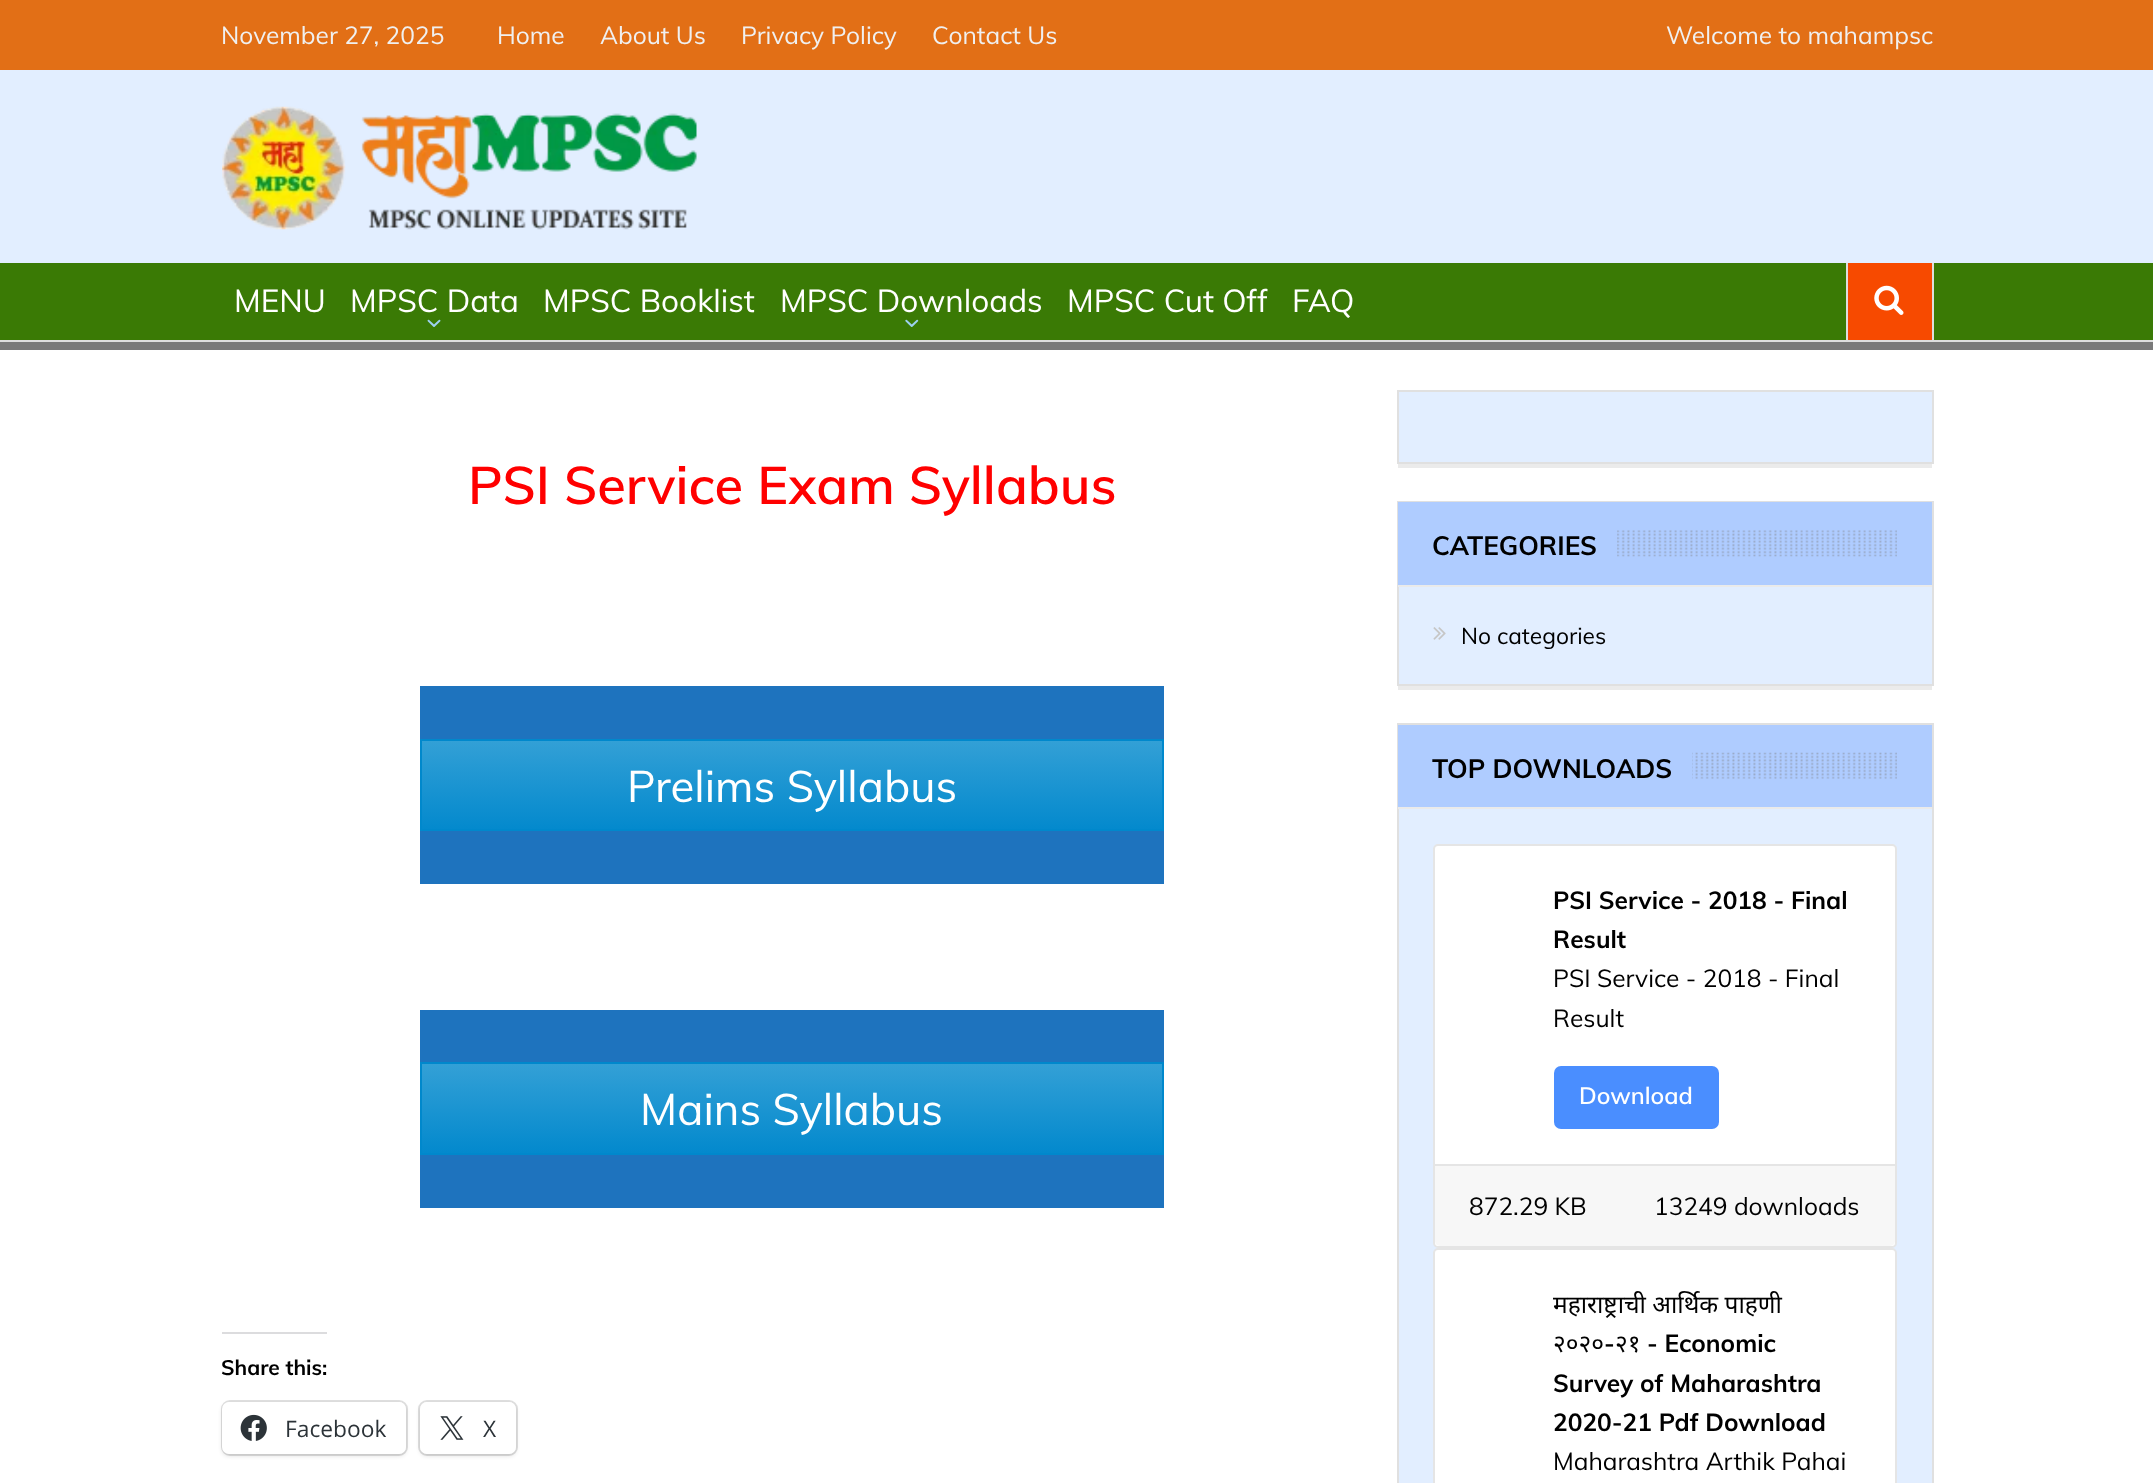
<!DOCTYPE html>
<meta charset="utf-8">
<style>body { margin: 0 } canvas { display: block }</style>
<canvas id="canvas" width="2153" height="1483"></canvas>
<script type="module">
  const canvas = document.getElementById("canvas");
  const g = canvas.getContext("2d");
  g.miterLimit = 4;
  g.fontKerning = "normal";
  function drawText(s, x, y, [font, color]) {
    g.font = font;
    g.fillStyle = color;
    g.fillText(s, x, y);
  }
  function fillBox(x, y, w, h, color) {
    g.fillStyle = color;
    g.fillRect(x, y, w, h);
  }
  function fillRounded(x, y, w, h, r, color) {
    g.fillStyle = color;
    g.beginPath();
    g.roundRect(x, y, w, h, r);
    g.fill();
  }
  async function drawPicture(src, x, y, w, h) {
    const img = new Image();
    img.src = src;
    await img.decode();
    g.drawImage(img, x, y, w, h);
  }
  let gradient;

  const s1 = ["24.5px Muli", "#F0F0F0"];
  const s2 = ["31.5px Muli", "#FFFFFF"];
  const s3 = ["600 52.5px Muli", "#FF0000"];
  const s4 = ["43.75px Muli", "#FFFFFF"];
  const s5 = ["bold 21px Muli", "#000000"];
  const s6 = ["22.75px Open Sans", "#2C3338"];
  const s7 = ["bold 26.25px Muli", "#000000"];
  const s8 = ["22.75px Muli", "#000000"];
  const s9 = ["bold 24.5px Muli", "#000000"];
  const s10 = ["24.5px Muli", "#000000"];
  const s11 = ["600 23.5px Muli", "#FFFFFF"];
  const s12 = ["24.5px Noto Sans", "#000000"];

  fillBox(0, 0, 2153, 1483, "#FFFFFF");
  fillBox(0, 0, 2153, 70, "#E26F16");
  drawText("November 27, 2025", 221, 44, s1);
  drawText("Home", 497, 44, s1);
  drawText("About Us", 600, 44, s1);
  drawText("Privacy Policy", 741, 44, s1);
  drawText("Contact Us", 932, 44, s1);
  drawText("Welcome to mahampsc", 1666, 44, s1);
  fillBox(0, 70, 2153, 193, "#E2EEFF");
  await drawPicture("pic1.png", 222, 106, 475, 124);
  fillBox(0, 342, 2153, 8, "#7A7A7A");
  fillBox(0, 263, 2153, 77, "#3A7A05");
  fillBox(0, 340, 2153, 2, "#DFDFDF");
  drawText("MENU", 234, 312, s2);
  drawText("MPSC Data", 350, 312, s2);
  await drawPicture("pic2.png", 427, 319, 14, 8);
  drawText("MPSC Booklist", 543, 312, s2);
  drawText("MPSC Downloads", 780, 312, s2);
  await drawPicture("pic3.png", 905, 319, 14, 8);
  drawText("MPSC Cut Off", 1067, 312, s2);
  drawText("FAQ", 1292, 312, s2);
  fillBox(1848, 263, 84, 77, "#F74A00");
  fillBox(1932, 263, 2, 77, "#DFDFDF");
  fillBox(1846, 263, 2, 77, "#DFDFDF");
  await drawPicture("pic4.png", 1874, 285, 30, 30);
  drawText("PSI Service Exam Syllabus", 468, 504, s3);
  fillBox(420, 686, 744, 198, "#1E73BE");
  gradient = g.createLinearGradient(792, 740, 792, 830);
  gradient.addColorStop(0, "#33A0D6");
  gradient.addColorStop(1, "#0389CD");
  g.fillStyle = gradient;
  g.fillRect(422, 741, 740, 88);
  g.strokeStyle = "#0088CC";
  g.lineWidth = 2;
  g.strokeRect(421, 740, 742, 90);
  drawText("Prelims Syllabus", 627, 802, s4);
  fillBox(420, 1010, 744, 198, "#1E73BE");
  gradient = g.createLinearGradient(792, 1064, 792, 1153);
  gradient.addColorStop(0, "#33A0D6");
  gradient.addColorStop(1, "#0389CD");
  g.fillStyle = gradient;
  g.fillRect(422, 1064, 740, 89);
  g.strokeRect(421, 1063, 742, 91);
  drawText("Mains Syllabus", 640, 1125, s4);
  fillBox(222, 1332, 105, 2, "#DCDCDE");
  drawText("Share this:", 221, 1375, s5);
  g.beginPath();
  g.roundRect(222, 1401, 185, 54, 8);
  g.strokeStyle = "#E0E0E0";
  g.stroke();
  g.fillStyle = "rgba(0, 0, 0, 0.12)";
  g.filter = "blur(2px)";
  g.beginPath();
  g.roundRect(222, 1404, 184, 52, 7);
  g.fill();
  g.filter = "none";
  fillRounded(222, 1402, 184, 52, 7, "#FFFFFF");
  await drawPicture("pic5.png", 240, 1414, 27, 27);
  drawText("Facebook", 285, 1437, s6);
  g.beginPath();
  g.roundRect(419, 1401, 98, 54, 8);
  g.stroke();
  g.fillStyle = "rgba(0, 0, 0, 0.12)";
  g.filter = "blur(2px)";
  g.beginPath();
  g.roundRect(420, 1404, 96, 52, 7);
  g.fill();
  g.filter = "none";
  fillRounded(420, 1402, 96, 52, 7, "#FFFFFF");
  await drawPicture("pic6.png", 440, 1416, 24, 24);
  drawText("X", 483, 1437, s6);
  g.fillStyle = "#E2EEFF";
  g.beginPath();
  g.rect(1398, 391, 535, 72);
  g.fill();
  g.stroke();
  fillBox(1398, 464, 534, 4, "#EBEBEB");
  fillBox(1399, 587, 533, 97, "#E2EEFF");
  g.strokeRect(1398, 502, 535, 183);
  fillBox(1398, 502, 534, 83, "#AFCCFF");
  fillBox(1398, 585, 534, 2, "#EAEAEA");
  await drawPicture("pic7.png", 1617, 530, 280, 27);
  drawText("CATEGORIES", 1432, 555, s7);
  await drawPicture("pic8.png", 1433, 627, 13, 13);
  drawText("No categories", 1461, 644, s8);
  fillBox(1398, 686, 534, 4, "#EBEBEB");
  fillBox(1399, 809, 533, 674, "#E2EEFF");
  g.strokeRect(1398, 724, 535, 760);
  fillBox(1398, 725, 534, 82, "#AFCCFF");
  fillBox(1398, 807, 534, 2, "#EAEAEA");
  await drawPicture("pic9.png", 1692, 752, 205, 27);
  drawText("TOP DOWNLOADS", 1432, 778, s7);
  g.fillStyle = "#FFFFFF";
  g.beginPath();
  g.roundRect(1434, 845, 462, 402, 4);
  g.fill();
  g.strokeStyle = "#E5E5E5";
  g.stroke();
  drawText("PSI Service - 2018 - Final", 1553, 909, s9);
  drawText("Result", 1553, 948, s9);
  drawText("PSI Service - 2018 - Final", 1553, 987, s10);
  drawText("Result", 1553, 1027, s10);
  fillRounded(1554, 1066, 165, 63, 7, "#4A8EFF");
  drawText("Download", 1579, 1104, s11);
  g.fillStyle = "#F7F7F7";
  g.beginPath();
  g.roundRect(1435, 1164, 460, 82, [0, 0, 5, 5]);
  g.fill();
  fillBox(1435, 1164, 460, 2, "#E5E5E5");
  drawText("872.29 KB", 1469, 1215, s10);
  drawText("13249 downloads", 1654, 1215, s10);
  g.fillStyle = "#FFFFFF";
  g.beginPath();
  g.roundRect(1434, 1249, 462, 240, 4);
  g.fill();
  g.stroke();
  drawText("महाराष्ट्राची आर्थिक पाहणी", 1553, 1313, s12);
  drawText("२०२०", 1553, 1352, s12);
  drawText("-", 1604, 1352, s9);
  drawText("२१", 1615, 1352, s12);
  drawText("- Economic", 1647, 1352, s9);
  drawText("Survey of Maharashtra", 1553, 1392, s9);
  drawText("2020-21 Pdf Download", 1553, 1431, s9);
  drawText("Maharashtra Arthik Pahai", 1553, 1470, s10);
</script>
